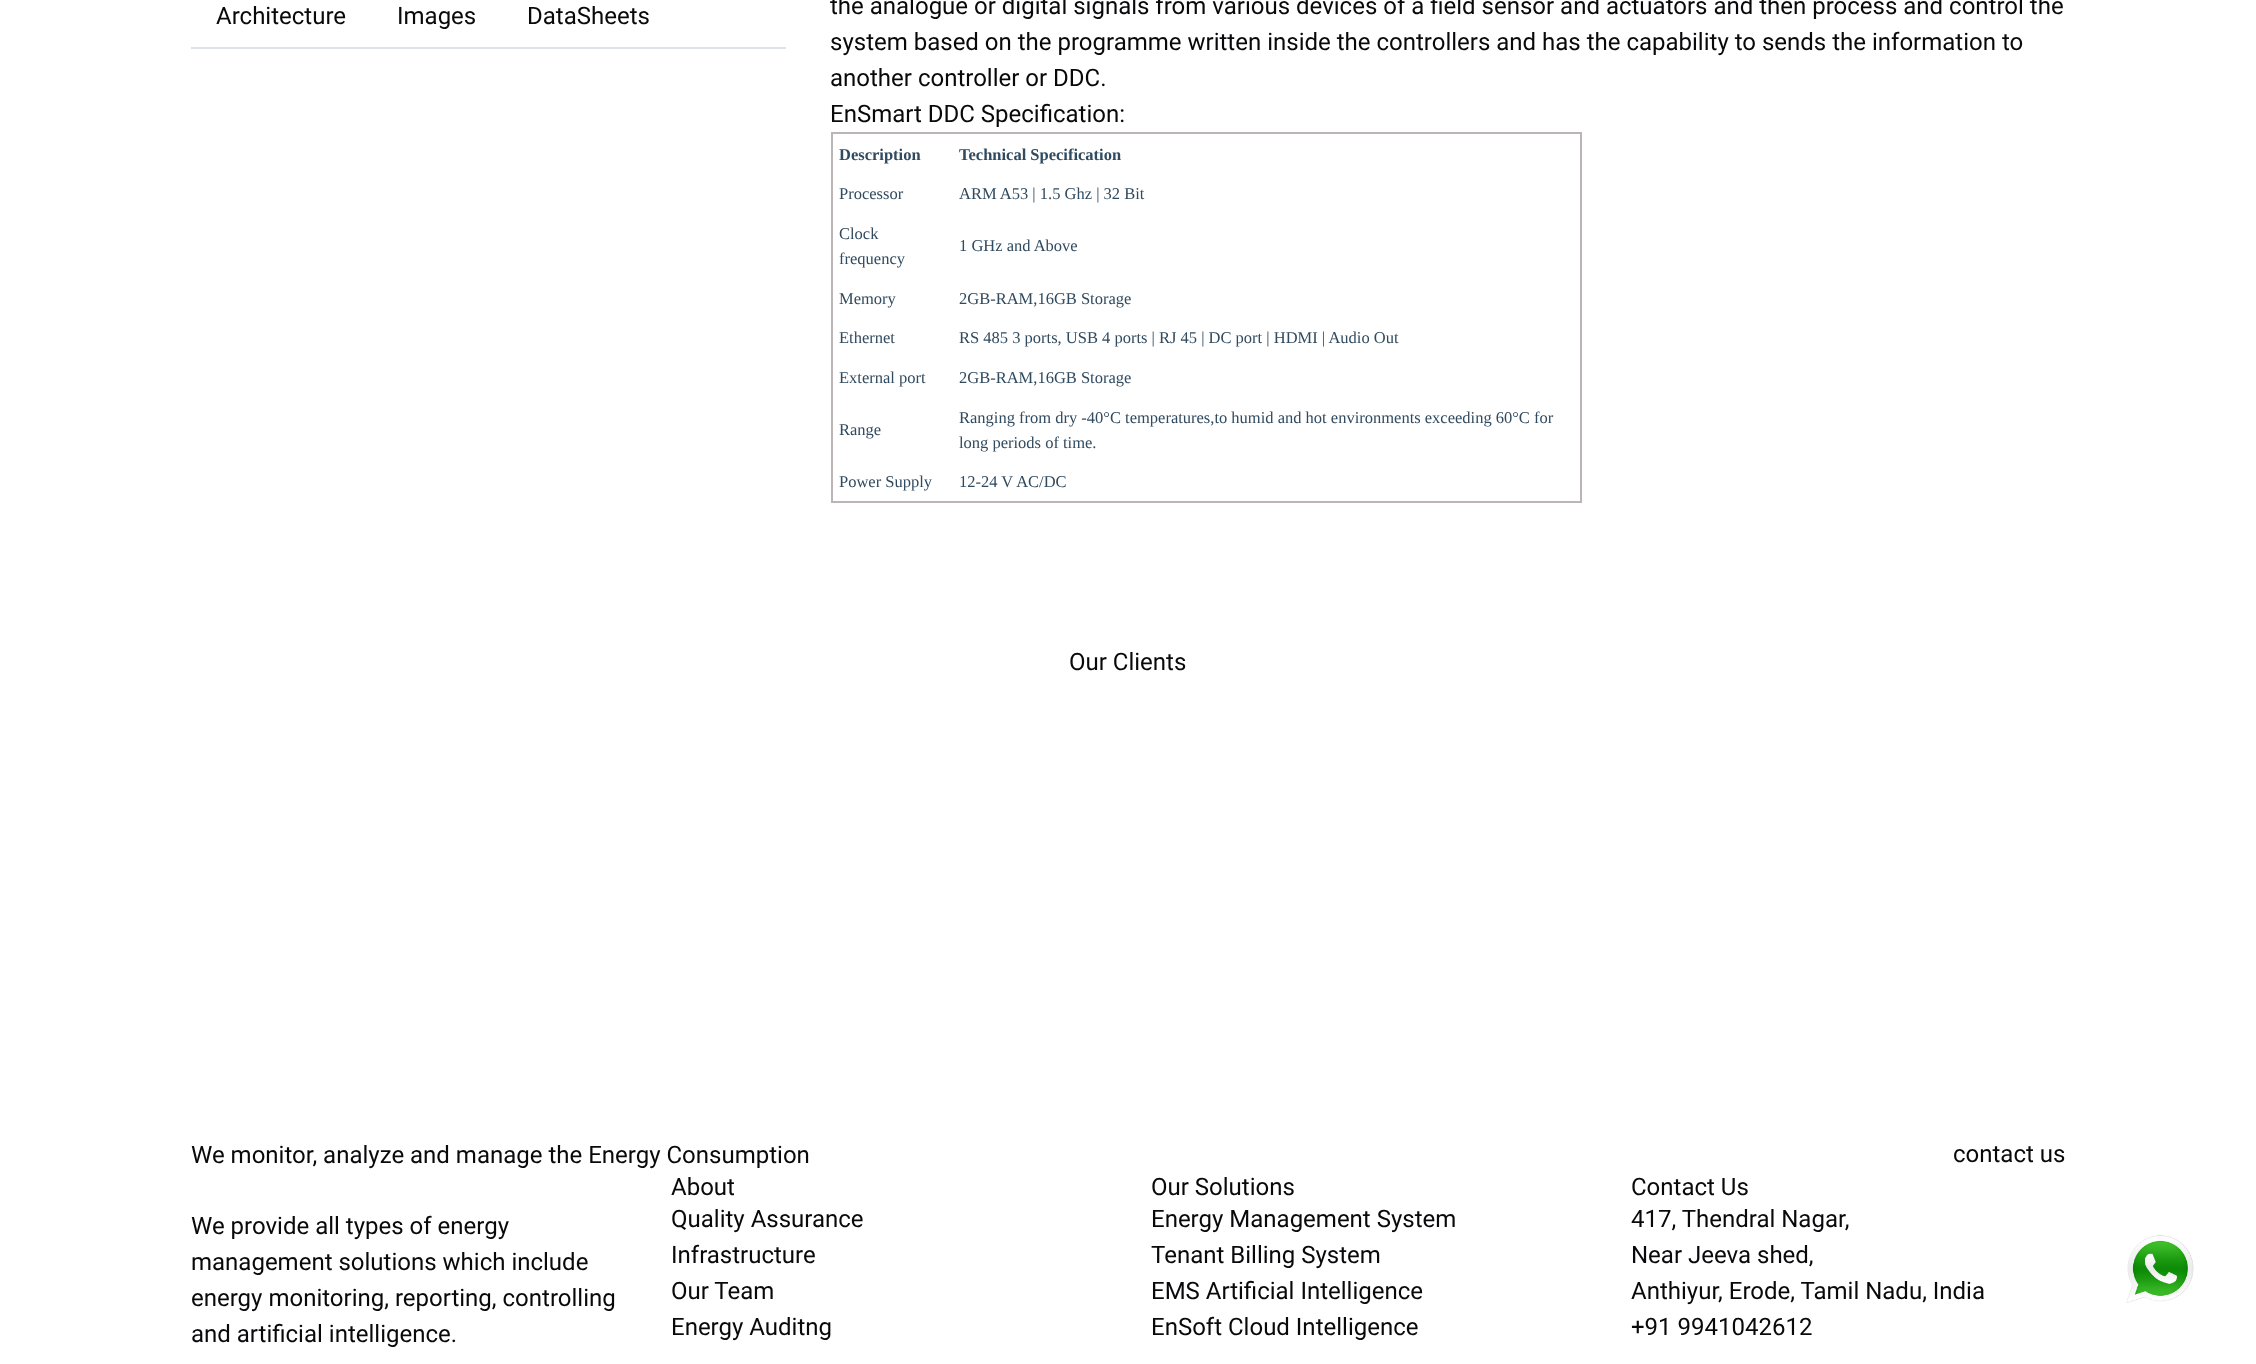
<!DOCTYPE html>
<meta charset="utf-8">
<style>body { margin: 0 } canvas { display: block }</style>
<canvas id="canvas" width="2256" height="1364"></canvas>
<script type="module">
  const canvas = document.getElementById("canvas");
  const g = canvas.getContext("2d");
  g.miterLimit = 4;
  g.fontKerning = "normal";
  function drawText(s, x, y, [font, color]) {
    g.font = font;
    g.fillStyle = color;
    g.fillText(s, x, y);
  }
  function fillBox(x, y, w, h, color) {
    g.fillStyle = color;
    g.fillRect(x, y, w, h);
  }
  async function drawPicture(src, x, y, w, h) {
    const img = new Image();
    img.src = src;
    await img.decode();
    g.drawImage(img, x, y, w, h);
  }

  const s1 = ["24px Roboto", "#09090B"];
  const s2 = ["bold 16.5px Liberation Serif", "#304A5F"];
  const s3 = ["16.5px Liberation Serif", "#304A5F"];

  fillBox(0, 0, 2256, 1364, "#FFFFFF");
  fillBox(191, 47, 595, 2, "#DEE2E6");
  drawText("Architecture", 216, 24, s1);
  drawText("Images", 397, 24, s1);
  drawText("DataSheets", 527, 24, s1);
  drawText("the analogue or digital signals from various devices of a field sensor and actuators and then process and control the", 830, 14, s1);
  drawText("system based on the programme written inside the controllers and has the capability to sends the information to", 830, 50, s1);
  drawText("another controller or DDC.", 830, 86, s1);
  drawText("EnSmart DDC Specification:", 830, 122, s1);
  fillBox(831, 132, 750, 2, "#BCB5B5");
  fillBox(1580, 132, 2, 371, "#BCB5B5");
  fillBox(831, 501, 750, 2, "#BCB5B5");
  fillBox(831, 132, 2, 371, "#BCB5B5");
  drawText("Description", 839, 160, s2);
  drawText("Technical Specification", 959, 160, s2);
  drawText("Processor", 839, 199, s3);
  drawText("ARM A53 | 1.5 Ghz | 32 Bit", 959, 199, s3);
  drawText("Clock", 839, 239, s3);
  drawText("frequency", 839, 264, s3);
  drawText("1 GHz and Above", 959, 251, s3);
  drawText("Memory", 839, 304, s3);
  drawText("2GB-RAM,16GB Storage", 959, 304, s3);
  drawText("Ethernet", 839, 343, s3);
  drawText("RS 485 3 ports, USB 4 ports | RJ 45 | DC port | HDMI | Audio Out", 959, 343, s3);
  drawText("External port", 839, 383, s3);
  drawText("2GB-RAM,16GB Storage", 959, 383, s3);
  drawText("Range", 839, 435, s3);
  drawText("Ranging from dry -40°C temperatures,to humid and hot environments exceeding 60°C for", 959, 423, s3);
  drawText("long periods of time.", 959, 448, s3);
  drawText("Power Supply", 839, 487, s3);
  drawText("12-24 V AC/DC", 959, 487, s3);
  drawText("Our Clients", 1069, 670, s1);
  drawText("We monitor, analyze and manage the Energy Consumption", 191, 1163, s1);
  drawText("contact us", 1953, 1162, s1);
  drawText("We provide all types of energy", 191, 1234, s1);
  drawText("management solutions which include", 191, 1270, s1);
  drawText("energy monitoring, reporting, controlling", 191, 1306, s1);
  drawText("and artificial intelligence.", 191, 1342, s1);
  drawText("About", 671, 1195, s1);
  drawText("Quality Assurance", 671, 1227, s1);
  drawText("Infrastructure", 671, 1263, s1);
  drawText("Our Team", 671, 1299, s1);
  drawText("Energy Auditng", 671, 1335, s1);
  drawText("Our Solutions", 1151, 1195, s1);
  drawText("Energy Management System", 1151, 1227, s1);
  drawText("Tenant Billing System", 1151, 1263, s1);
  drawText("EMS Artificial Intelligence", 1151, 1299, s1);
  drawText("EnSoft Cloud Intelligence", 1151, 1335, s1);
  drawText("Contact Us", 1631, 1195, s1);
  drawText("417, Thendral Nagar,", 1631, 1227, s1);
  drawText("Near Jeeva shed,", 1631, 1263, s1);
  drawText("Anthiyur, Erode, Tamil Nadu, India", 1631, 1299, s1);
  drawText("+91 9941042612", 1631, 1335, s1);
  await drawPicture("pic1.png", 2126, 1235, 68, 68);
</script>
